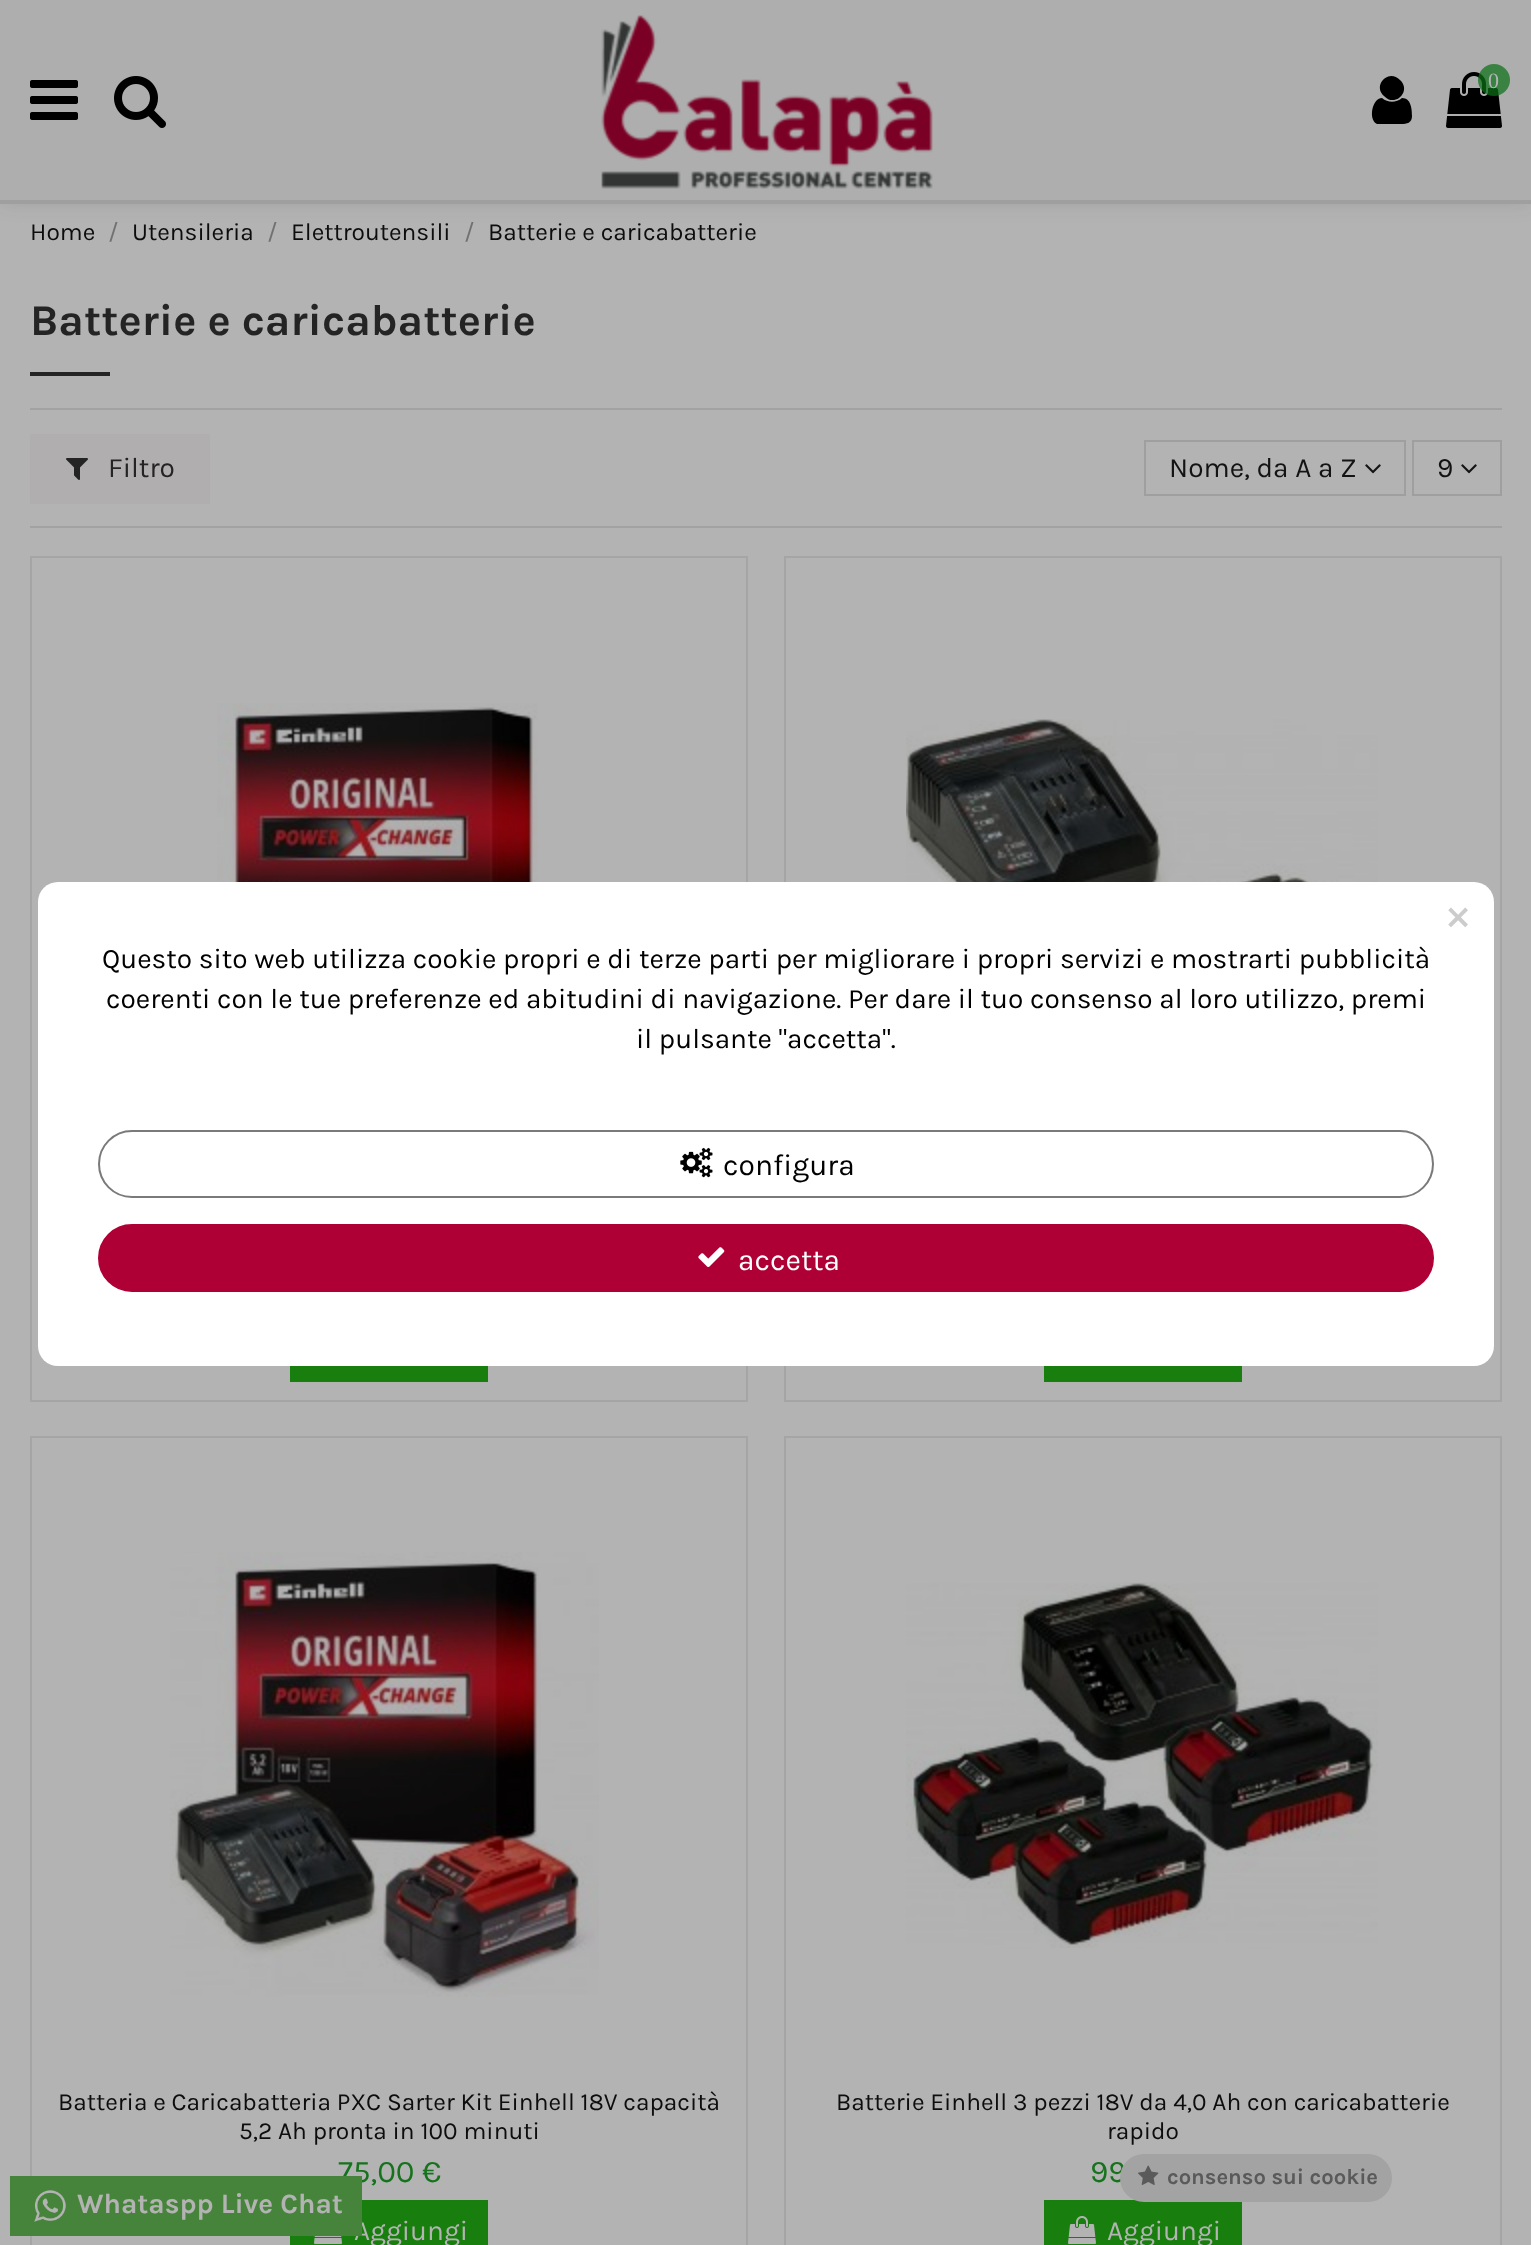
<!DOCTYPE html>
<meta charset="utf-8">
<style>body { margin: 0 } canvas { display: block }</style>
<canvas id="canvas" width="1531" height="2245"></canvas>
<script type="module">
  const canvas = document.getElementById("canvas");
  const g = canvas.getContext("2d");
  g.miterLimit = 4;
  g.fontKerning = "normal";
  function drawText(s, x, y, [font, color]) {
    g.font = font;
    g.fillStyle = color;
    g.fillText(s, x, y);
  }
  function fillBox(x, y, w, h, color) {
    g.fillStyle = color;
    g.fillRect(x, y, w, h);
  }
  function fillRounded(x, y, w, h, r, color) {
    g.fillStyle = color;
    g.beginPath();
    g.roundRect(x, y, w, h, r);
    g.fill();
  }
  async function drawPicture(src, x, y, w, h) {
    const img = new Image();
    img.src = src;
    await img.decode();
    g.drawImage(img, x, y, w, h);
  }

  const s1 = ["22px Liberation Serif", "#B3B3B3"];
  const s2 = ["24.5px Karla", "#0E0D0D"];
  const s3 = ["24.5px Karla", "#717171"];
  const s4 = ["bold 43.75px Karla", "#242424"];
  const s5 = ["28px Karla", "#242424"];
  const s6 = ["28px Karla", "#141314"];
  const s7 = ["31.5px Karla", "#16731D"];
  const s8 = ["28px Karla", "#B3B3B3"];
  const s9 = ["bold 28px Karla", "#B3B3B3"];
  const s10 = ["50px Karla", "#CCCCCC"];
  const s11 = ["28px Karla", "#000000"];
  const s12 = ["30px Karla", "#000000"];
  const s13 = ["30px Karla", "#FFFFFF"];
  const s14 = ["bold 22px Karla", "#5A5A5A"];

  fillBox(0, 0, 1531, 2245, "#B3B3B3");
  g.fillStyle = "rgba(43, 40, 40, 0.17)";
  g.filter = "blur(11px)";
  g.beginPath();
  g.rect(0, -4, 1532, 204);
  g.fill();
  g.filter = "none";
  fillBox(0, 0, 1531, 200, "#AEAEAE");
  fillBox(0, 200, 1531, 4, "#9F9F9F");
  await drawPicture("pic1.png", 30, 80, 48, 40);
  await drawPicture("pic2.png", 114, 76, 52, 52);
  await drawPicture("pic3.png", 601, 15, 332, 174);
  g.fillStyle = "#000000";
  g.beginPath();
  g.moveTo(1412, 116);
  g.bezierCurveTo(1412, 123, 1407, 124, 1401, 124);
  g.lineTo(1377, 124);
  g.bezierCurveTo(1368, 120, 1372, 98, 1382, 98);
  g.bezierCurveTo(1388, 103, 1396, 103, 1402, 98);
  g.bezierCurveTo(1411, 98, 1412, 109, 1412, 116);
  g.closePath();
  g.moveTo(1400, 80);
  g.bezierCurveTo(1412, 91, 1395, 108, 1384, 96);
  g.bezierCurveTo(1372, 85, 1389, 68, 1400, 80);
  g.closePath();
  g.fill();
  await drawPicture("pic4.png", 1446, 72, 56, 56);
  g.fillStyle = "rgba(11, 113, 23, 0.71)";
  g.beginPath();
  g.arc(1494, 80, 16, 0, Math.PI * 2);
  g.fill();
  drawText("0", 1488, 88, s1);
  drawText("Home", 30, 240, s2);
  drawText("/", 108, 240, s3);
  drawText("Utensileria", 132, 240, s2);
  drawText("/", 267, 240, s3);
  drawText("Elettroutensili", 291, 240, s2);
  drawText("/", 464, 240, s3);
  drawText("Batterie e caricabatterie", 488, 240, s2);
  drawText("Batterie e caricabatterie", 30, 335, s4);
  fillBox(30, 372, 80, 4, "#242424");
  fillBox(30, 408, 1472, 2, "#A2A2A2");
  fillBox(30, 526, 1472, 2, "#A2A2A2");
  fillBox(30, 434, 180, 70, "#B0AEAE");
  await drawPicture("pic5.png", 66, 458, 22, 22);
  drawText("Filtro", 108, 477, s5);
  g.strokeStyle = "#9F9F9F";
  g.lineWidth = 2;
  g.strokeRect(1145, 441, 260, 54);
  drawText("Nome, da A a Z", 1169, 477, s6);
  await drawPicture("pic6.png", 1365, 464, 16, 10);
  g.strokeRect(1413, 441, 88, 54);
  drawText("9", 1437, 477, s6);
  await drawPicture("pic6.png", 1461, 464, 16, 10);
  g.strokeStyle = "#A5A5A5";
  g.strokeRect(31, 557, 716, 844);
  await drawPicture("pic7.png", 217, 703, 321, 179);
  fillBox(290, 1366, 198, 16, "#187E0D");
  g.strokeRect(785, 557, 716, 844);
  await drawPicture("pic8.png", 906, 719, 472, 163);
  fillBox(1044, 1366, 198, 16, "#187E0D");
  g.strokeRect(31, 1437, 716, 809);
  await drawPicture("pic9.png", 170, 1552, 429, 445);
  drawText("Batteria e Caricabatteria PXC Sarter Kit Einhell 18V capacità", 58, 2110, s2);
  drawText("5,2 Ah pronta in 100 minuti", 239, 2139, s2);
  drawText("75,00 €", 338, 2182, s7);
  fillBox(290, 2200, 198, 45, "#187E0D");
  await drawPicture("pic10.png", 314, 2236, 28, 8);
  drawText("Aggiungi", 354, 2240, s8);
  g.strokeRect(785, 1437, 716, 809);
  await drawPicture("pic11.png", 906, 1582, 472, 366);
  drawText("Batterie Einhell 3 pezzi 18V da 4,0 Ah con caricabatterie", 836, 2110, s2);
  drawText("rapido", 1107, 2139, s2);
  drawText("99", 1090, 2182, s7);
  fillBox(1044, 2200, 198, 45, "#187E0D");
  await drawPicture("pic12.png", 1068, 2216, 28, 28);
  drawText("Aggiungi", 1107, 2240, s8);
  fillBox(10, 2176, 352, 60, "#47843B");
  await drawPicture("pic13.png", 34, 2190, 32, 32);
  drawText("Whataspp Live Chat", 77, 2213, s9);
  fillRounded(38, 882, 1456, 484, 20, "#FFFFFF");
  drawText("×", 1445, 930, s10);
  drawText("Questo sito web utilizza cookie propri e di terze parti per migliorare i propri servizi e mostrarti pubblicità", 102, 968, s11);
  drawText("coerenti con le tue preferenze ed abitudini di navigazione. Per dare il tuo consenso al loro utilizzo, premi", 106, 1008, s11);
  drawText("il pulsante \"accetta\".", 636, 1048, s11);
  g.beginPath();
  g.roundRect(99, 1131, 1334, 66, 33);
  g.strokeStyle = "#7A7A7A";
  g.stroke();
  await drawPicture("pic14.png", 680, 1147, 33, 31);
  drawText("configura", 723, 1175, s12);
  g.fillStyle = "#AF0036";
  g.beginPath();
  g.roundRect(99, 1225, 1334, 66, 33);
  g.fill();
  g.strokeStyle = "#AF0036";
  g.stroke();
  await drawPicture("pic15.png", 698, 1247, 27, 20);
  drawText("accetta", 738, 1270, s13);
  fillRounded(1120, 2154, 272, 48, 24, "#A3A3A3");
  await drawPicture("pic16.png", 1138, 2165, 21, 20);
  drawText("consenso sui cookie", 1167, 2184, s14);
</script>
